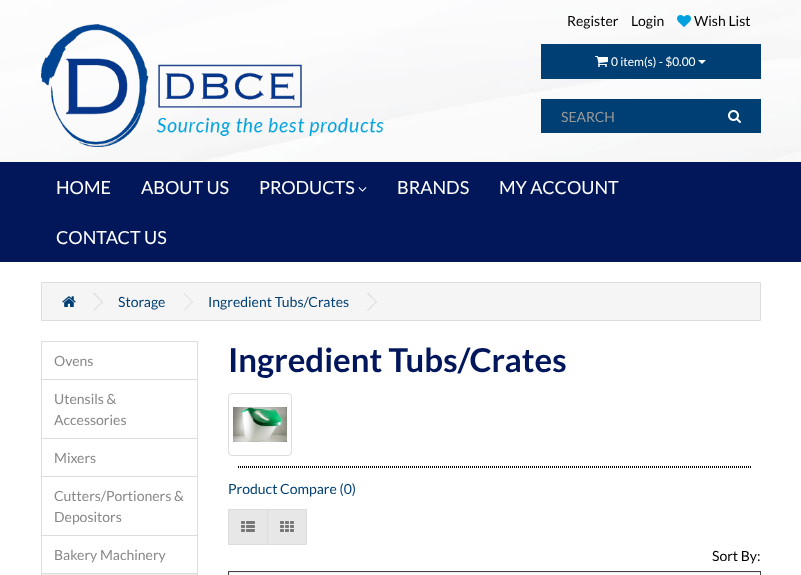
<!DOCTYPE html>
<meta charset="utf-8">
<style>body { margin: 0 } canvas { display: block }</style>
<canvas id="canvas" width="801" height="575"></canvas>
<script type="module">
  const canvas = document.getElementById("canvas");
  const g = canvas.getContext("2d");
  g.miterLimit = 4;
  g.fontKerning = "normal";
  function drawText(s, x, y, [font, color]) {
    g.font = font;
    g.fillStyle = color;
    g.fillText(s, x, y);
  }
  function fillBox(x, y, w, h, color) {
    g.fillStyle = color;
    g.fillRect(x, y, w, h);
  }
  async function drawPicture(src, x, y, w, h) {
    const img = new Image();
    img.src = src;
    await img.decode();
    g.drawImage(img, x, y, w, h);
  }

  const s1 = ["14px Lato", "#000000"];
  const s2 = ["12px Lato", "#FFFFFF"];
  const s3 = ["14px Lato", "#999999"];
  const s4 = ["18px Lato", "#FFFFFF"];
  const s5 = ["14px Lato", "#003F73"];
  const s6 = ["14px Lato", "#888888"];
  const s7 = ["bold 33px Lato", "#02165B"];

  fillBox(0, 0, 801, 575, "#FFFFFF");
  await drawPicture("pic1.png", 0, 0, 801, 162);
  drawText("Register", 567, 26, s1);
  drawText("Login", 631, 26, s1);
  await drawPicture("pic2.png", 677, 15, 14, 12);
  drawText("Wish List", 694, 26, s1);
  await drawPicture("pic3.png", 41, 24, 343, 123);
  fillBox(541, 44, 220, 35, "#003F73");
  await drawPicture("pic4.png", 595, 56, 13, 11);
  drawText("0 item(s) - $0.00", 611, 66, s2);
  g.beginPath();
  g.moveTo(698, 60);
  g.lineTo(706, 60);
  g.lineTo(702, 64);
  g.closePath();
  g.fill();
  fillBox(541, 99, 220, 34, "#003F73");
  fillBox(541, 99, 168, 1, "#003A6A");
  drawText("SEARCH", 561, 122, s3);
  await drawPicture("pic5.png", 728, 110, 13, 13);
  fillBox(0, 162, 801, 100, "#02175A");
  drawText("HOME", 56, 194, s4);
  drawText("ABOUT US", 141, 194, s4);
  drawText("PRODUCTS", 259, 194, s4);
  await drawPicture("pic6.png", 358, 187, 9, 5);
  drawText("BRANDS", 397, 194, s4);
  drawText("MY ACCOUNT", 499, 194, s4);
  drawText("CONTACT US", 56, 244, s4);
  g.fillStyle = "#F5F5F5";
  g.beginPath();
  g.rect(41.5, 282.5, 719, 38);
  g.fill();
  g.strokeStyle = "#DDDDDD";
  g.stroke();
  await drawPicture("pic7.png", 62, 296, 14, 11);
  g.fillStyle = "#DDDDDD";
  g.beginPath();
  g.moveTo(93, 293.5);
  g.lineTo(94, 292.5);
  g.lineTo(103, 302);
  g.lineTo(102.5, 302.5);
  g.closePath();
  g.fill();
  g.beginPath();
  g.moveTo(93, 310.5);
  g.lineTo(102.5, 301);
  g.lineTo(103, 302);
  g.lineTo(94, 311);
  g.closePath();
  g.fill();
  drawText("Storage", 118, 307, s5);
  g.fillStyle = "#DDDDDD";
  g.beginPath();
  g.moveTo(183.5, 293.5);
  g.lineTo(184, 292.5);
  g.lineTo(193, 302);
  g.lineTo(192.5, 302.5);
  g.closePath();
  g.fill();
  g.beginPath();
  g.moveTo(183.5, 310.5);
  g.lineTo(192.5, 301);
  g.lineTo(193, 302);
  g.lineTo(184, 311);
  g.closePath();
  g.fill();
  drawText("Ingredient Tubs/Crates", 208, 307, s5);
  g.fillStyle = "#DDDDDD";
  g.beginPath();
  g.moveTo(367, 293.5);
  g.lineTo(368, 292.5);
  g.lineTo(377, 302);
  g.lineTo(376.5, 302.5);
  g.closePath();
  g.fill();
  g.beginPath();
  g.moveTo(367, 310.5);
  g.lineTo(376.5, 301);
  g.lineTo(377, 302);
  g.lineTo(368, 311);
  g.closePath();
  g.fill();
  g.strokeRect(41.5, 341.5, 156, 38);
  drawText("Ovens", 54, 366, s6);
  g.strokeRect(41.5, 379.5, 156, 59);
  drawText("Utensils &", 54, 404, s6);
  drawText("Accessories", 54, 425, s6);
  g.strokeRect(41.5, 438.5, 156, 38);
  drawText("Mixers", 54, 463, s6);
  g.strokeRect(41.5, 476.5, 156, 59);
  drawText("Cutters/Portioners &", 54, 501, s6);
  drawText("Depositors", 54, 522, s6);
  g.strokeRect(41.5, 535.5, 156, 38);
  drawText("Bakery Machinery", 54, 560, s6);
  g.fillStyle = "#EEEEEE";
  g.beginPath();
  g.rect(41.5, 573.5, 156, 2);
  g.fill();
  g.stroke();
  drawText("Ingredient Tubs/Crates", 228, 372, s7);
  g.beginPath();
  g.roundRect(228.5, 393.5, 63, 62, 3.5);
  g.stroke();
  await drawPicture("pic8.png", 233, 407, 54, 35);
  g.beginPath();
  g.moveTo(238, 466.5);
  g.lineTo(751, 466.5);
  g.strokeStyle = "#000000";
  g.setLineDash([1, 1]);
  g.stroke();
  fillBox(750, 466, 1, 2, "#000000");
  g.beginPath();
  g.moveTo(238, 467.5);
  g.lineTo(751, 467.5);
  g.stroke();
  drawText("Product Compare (0)", 228, 494, s5);
  g.fillStyle = "#E7E7E7";
  g.beginPath();
  g.rect(228.5, 509.5, 39, 35);
  g.fill();
  g.strokeStyle = "#DDDDDD";
  g.setLineDash([]);
  g.stroke();
  await drawPicture("pic9.png", 241, 521, 14, 11);
  g.beginPath();
  g.rect(267.5, 509.5, 39, 35);
  g.fill();
  g.stroke();
  await drawPicture("pic10.png", 280, 521, 14, 11);
  drawText("Sort By:", 712, 561, s1);
  fillBox(229, 572, 531, 1, "#ECECEC");
  g.strokeStyle = "#444444";
  g.strokeRect(228.5, 571.5, 532, 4);
</script>
